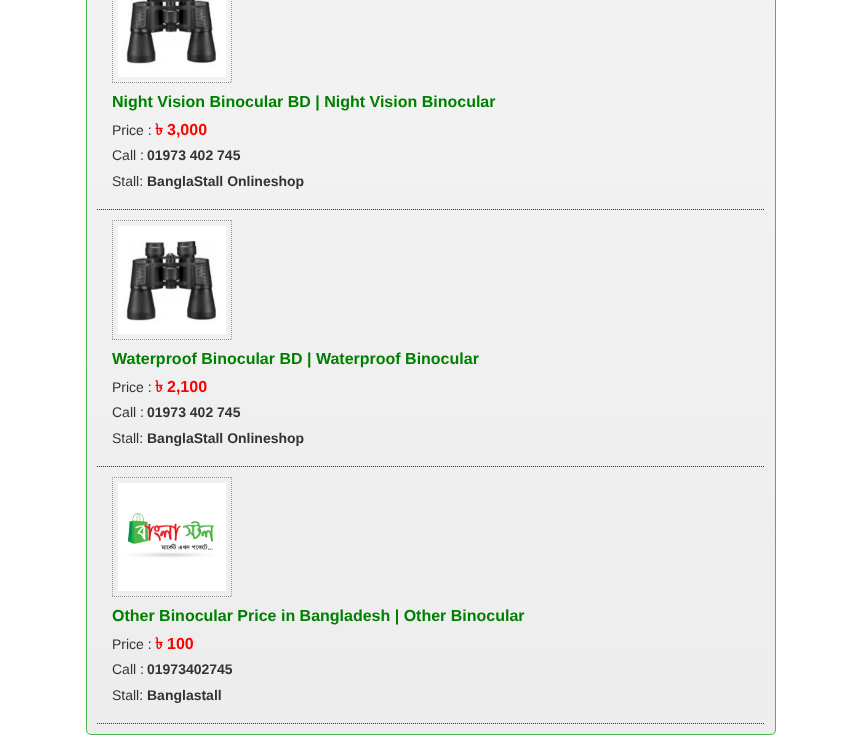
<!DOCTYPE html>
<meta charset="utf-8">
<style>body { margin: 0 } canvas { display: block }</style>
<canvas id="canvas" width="861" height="745"></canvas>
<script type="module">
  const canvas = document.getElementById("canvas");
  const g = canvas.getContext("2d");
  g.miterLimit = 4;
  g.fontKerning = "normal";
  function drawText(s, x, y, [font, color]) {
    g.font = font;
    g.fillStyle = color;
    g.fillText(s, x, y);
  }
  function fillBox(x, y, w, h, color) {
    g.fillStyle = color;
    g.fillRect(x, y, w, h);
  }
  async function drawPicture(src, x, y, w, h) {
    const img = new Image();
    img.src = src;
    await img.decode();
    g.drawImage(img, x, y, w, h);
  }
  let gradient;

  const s1 = ["bold 16px Liberation Sans", "#008000"];
  const s2 = ["14px Liberation Sans", "#333333"];
  const s3 = ["bold 16px Lohit Bengali", "#FF0000"];
  const s4 = ["bold 16px Liberation Sans", "#FF0000"];
  const s5 = ["bold 14px Liberation Sans", "#333333"];

  fillBox(0, 0, 861, 745, "#FFFFFF");
  g.save();
  g.beginPath();
  g.roundRect(86, -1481, 690, 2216, 5);
  g.clip();
  gradient = g.createLinearGradient(431, -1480, 431, 734);
  gradient.addColorStop(0, "#FFFFFF");
  gradient.addColorStop(1, "#EDEDED");
  g.fillStyle = gradient;
  g.fillRect(86, 0, 690, 734);
  g.restore();
  g.beginPath();
  g.roundRect(86.5, -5.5, 689, 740, 4.5);
  g.strokeStyle = "#4DB848";
  g.stroke();
  g.beginPath();
  g.moveTo(97, 209.5);
  g.lineTo(765, 209.5);
  g.strokeStyle = "#333333";
  g.setLineDash([1, 1]);
  g.stroke();
  g.beginPath();
  g.moveTo(112.5, -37);
  g.lineTo(112.5, 83);
  g.strokeStyle = "#999999";
  g.stroke();
  await drawPicture("pic1.png", 118, 0, 108, 77);
  g.beginPath();
  g.moveTo(231.5, -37);
  g.lineTo(231.5, 83);
  g.stroke();
  g.beginPath();
  g.moveTo(112, 82.5);
  g.lineTo(232, 82.5);
  g.stroke();
  drawText("Night Vision Binocular BD | Night Vision Binocular", 112, 107, s1);
  drawText("Price :", 112, 135, s2);
  drawText("৳", 155, 135, s3);
  drawText("3,000", 167, 135, s4);
  drawText("Call :", 112, 160, s2);
  drawText("01973 402 745", 147, 160, s5);
  drawText("Stall:", 112, 186, s2);
  drawText("BanglaStall Onlineshop", 147, 186, s5);
  g.beginPath();
  g.moveTo(97, 466.5);
  g.lineTo(765, 466.5);
  g.strokeStyle = "#333333";
  g.stroke();
  g.beginPath();
  g.moveTo(112, 220.5);
  g.lineTo(232, 220.5);
  g.strokeStyle = "#999999";
  g.stroke();
  g.beginPath();
  g.moveTo(112.5, 220);
  g.lineTo(112.5, 340);
  g.stroke();
  await drawPicture("pic2.png", 118, 226, 108, 108);
  g.beginPath();
  g.moveTo(231.5, 220);
  g.lineTo(231.5, 340);
  g.stroke();
  g.beginPath();
  g.moveTo(112, 339.5);
  g.lineTo(232, 339.5);
  g.stroke();
  drawText("Waterproof Binocular BD | Waterproof Binocular", 112, 364, s1);
  drawText("Price :", 112, 392, s2);
  drawText("৳", 155, 392, s3);
  drawText("2,100", 167, 392, s4);
  drawText("Call :", 112, 417, s2);
  drawText("01973 402 745", 147, 417, s5);
  drawText("Stall:", 112, 443, s2);
  drawText("BanglaStall Onlineshop", 147, 443, s5);
  g.beginPath();
  g.moveTo(97, 723.5);
  g.lineTo(765, 723.5);
  g.strokeStyle = "#333333";
  g.stroke();
  g.beginPath();
  g.moveTo(112, 477.5);
  g.lineTo(232, 477.5);
  g.strokeStyle = "#999999";
  g.stroke();
  g.beginPath();
  g.moveTo(112.5, 477);
  g.lineTo(112.5, 597);
  g.stroke();
  await drawPicture("pic3.png", 118, 483, 108, 108);
  g.beginPath();
  g.moveTo(231.5, 477);
  g.lineTo(231.5, 597);
  g.stroke();
  g.beginPath();
  g.moveTo(112, 596.5);
  g.lineTo(232, 596.5);
  g.stroke();
  drawText("Other Binocular Price in Bangladesh | Other Binocular", 112, 621, s1);
  drawText("Price :", 112, 649, s2);
  drawText("৳", 155, 649, s3);
  drawText("100", 167, 649, s4);
  drawText("Call :", 112, 674, s2);
  drawText("01973402745", 147, 674, s5);
  drawText("Stall:", 112, 700, s2);
  drawText("Banglastall", 147, 700, s5);
</script>
